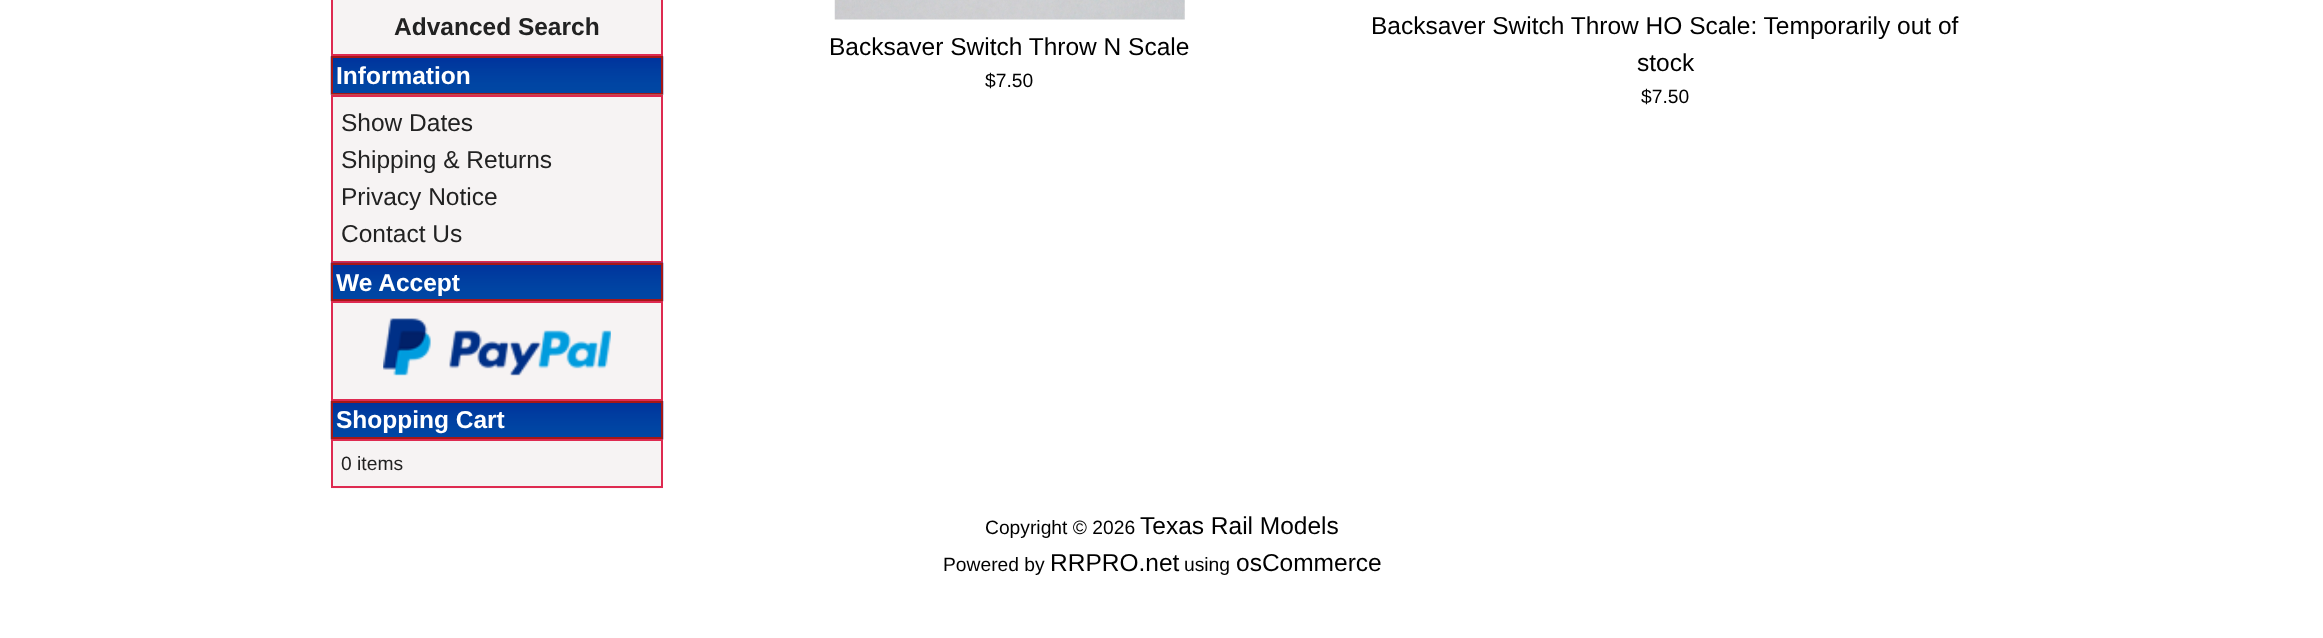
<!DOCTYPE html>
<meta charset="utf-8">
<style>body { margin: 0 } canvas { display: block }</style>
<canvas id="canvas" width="2323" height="638"></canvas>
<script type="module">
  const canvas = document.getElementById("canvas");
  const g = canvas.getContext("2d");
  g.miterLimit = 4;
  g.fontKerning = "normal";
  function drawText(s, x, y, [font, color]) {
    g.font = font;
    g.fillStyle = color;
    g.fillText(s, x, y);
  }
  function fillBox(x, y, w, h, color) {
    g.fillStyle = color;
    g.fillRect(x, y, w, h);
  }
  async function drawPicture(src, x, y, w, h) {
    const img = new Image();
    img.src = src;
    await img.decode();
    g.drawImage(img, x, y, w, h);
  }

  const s1 = ["bold 24.5px Liberation Sans", "#222222"];
  const s2 = ["bold 24.5px Liberation Sans", "#FFFFFF"];
  const s3 = ["24.5px Liberation Sans", "#222222"];
  const s4 = ["19.25px Liberation Sans", "#222222"];
  const s5 = ["24.5px Liberation Sans", "#000000"];
  const s6 = ["19.25px Liberation Sans", "#000000"];

  fillBox(0, 0, 2323, 638, "#FFFFFF");
  g.fillStyle = "#F6F3F3";
  g.beginPath();
  g.rect(332, -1, 330, 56);
  g.fill();
  g.strokeStyle = "#DE2A50";
  g.lineWidth = 2;
  g.stroke();
  drawText("Advanced Search", 394, 35, s1);
  await drawPicture("pic1.png", 330, 56, 334, 39);
  g.strokeStyle = "#A51717";
  g.strokeRect(332, 57, 330, 37);
  drawText("Information", 336, 84, s2);
  g.fillStyle = "#F6F3F3";
  g.beginPath();
  g.rect(332, 96, 330, 166);
  g.fill();
  g.strokeStyle = "#DE2A50";
  g.stroke();
  fillBox(331, 94, 332, 1, "#BA4E4E");
  drawText("Show Dates", 341, 131, s3);
  drawText("Shipping & Returns", 341, 168, s3);
  drawText("Privacy Notice", 341, 205, s3);
  drawText("Contact Us", 341, 242, s3);
  await drawPicture("pic2.png", 330, 262, 334, 40);
  g.strokeStyle = "#A51717";
  g.strokeRect(332, 264, 330, 36);
  drawText("We Accept", 336, 291, s2);
  g.fillStyle = "#F6F3F3";
  g.beginPath();
  g.rect(332, 302, 330, 98);
  g.fill();
  g.strokeStyle = "#DE2A50";
  g.stroke();
  await drawPicture("pic3.png", 383, 318, 228, 58);
  await drawPicture("pic4.png", 330, 401, 334, 39);
  g.strokeStyle = "#A51717";
  g.strokeRect(332, 402, 330, 36);
  drawText("Shopping Cart", 336, 428, s2);
  g.fillStyle = "#F6F3F3";
  g.beginPath();
  g.rect(332, 440, 330, 47);
  g.fill();
  g.strokeStyle = "#DE2A50";
  g.stroke();
  fillBox(331, 488, 332, 1, "#FAF9F9");
  drawText("0 items", 341, 470, s4);
  await drawPicture("pic5.png", 834, 0, 351, 20);
  drawText("Backsaver Switch Throw N Scale", 829, 55, s5);
  drawText("$7.50", 985, 87, s6);
  drawText("Backsaver Switch Throw HO Scale: Temporarily out of", 1371, 34, s5);
  drawText("stock", 1637, 71, s5);
  drawText("$7.50", 1641, 103, s6);
  drawText("Copyright © 2026", 985, 534, s6);
  drawText("Texas Rail Models", 1140, 534, s5);
  drawText("Powered by", 943, 571, s6);
  drawText("RRPRO.net", 1050, 571, s5);
  drawText("using", 1184, 571, s6);
  drawText("osCommerce", 1236, 571, s5);
</script>
